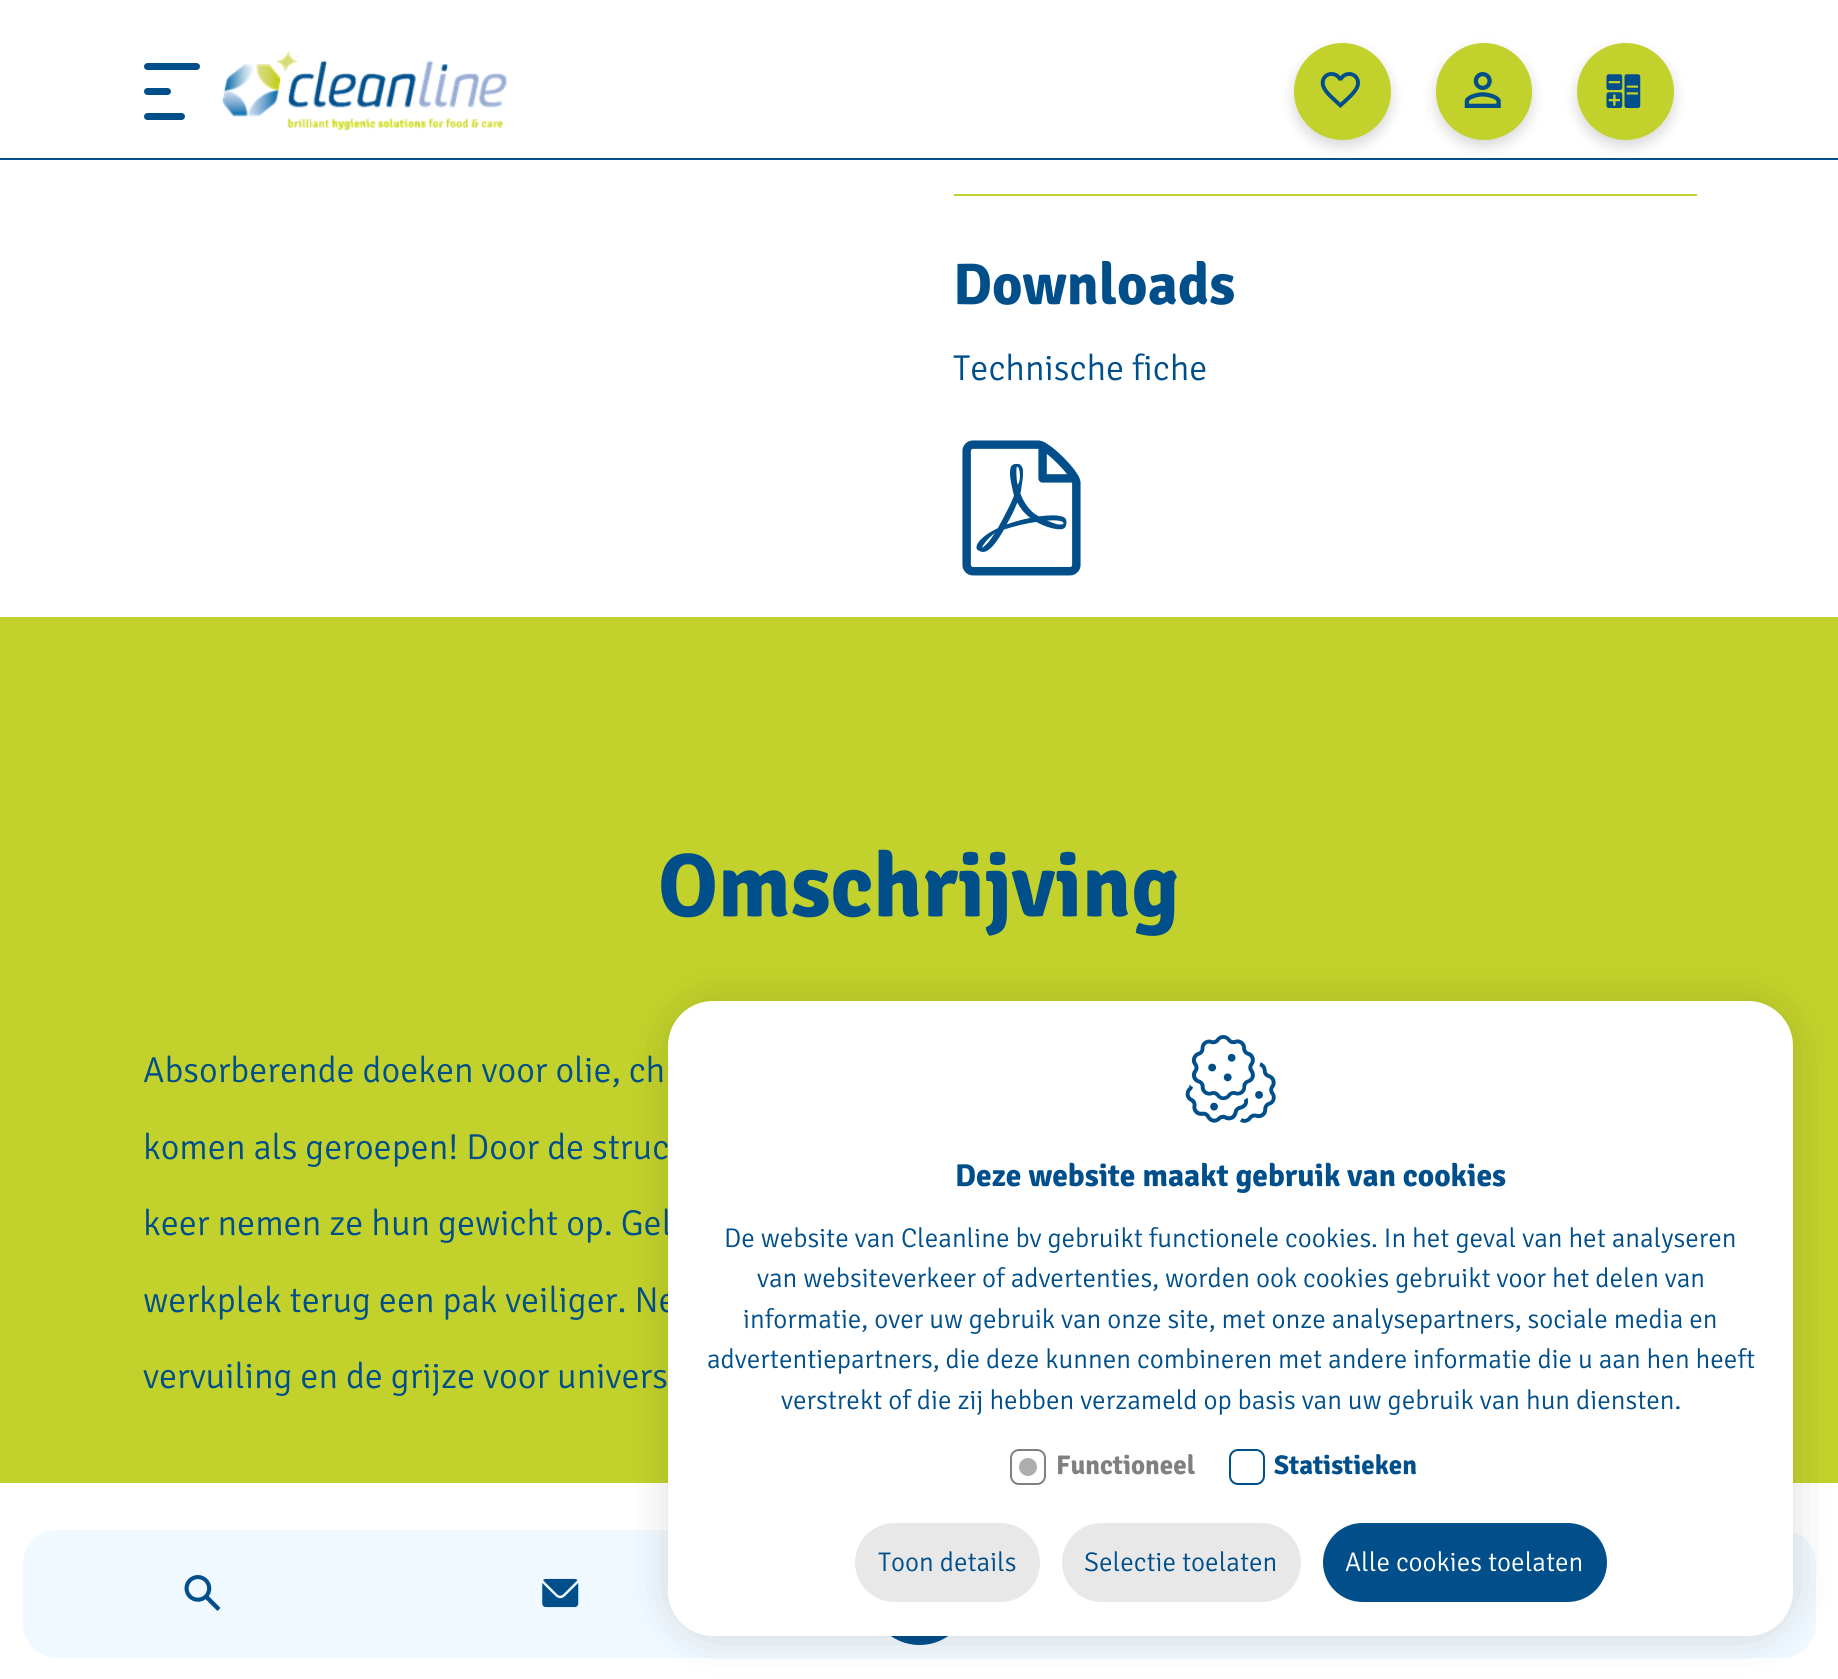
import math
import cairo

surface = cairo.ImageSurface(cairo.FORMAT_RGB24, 1838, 1679)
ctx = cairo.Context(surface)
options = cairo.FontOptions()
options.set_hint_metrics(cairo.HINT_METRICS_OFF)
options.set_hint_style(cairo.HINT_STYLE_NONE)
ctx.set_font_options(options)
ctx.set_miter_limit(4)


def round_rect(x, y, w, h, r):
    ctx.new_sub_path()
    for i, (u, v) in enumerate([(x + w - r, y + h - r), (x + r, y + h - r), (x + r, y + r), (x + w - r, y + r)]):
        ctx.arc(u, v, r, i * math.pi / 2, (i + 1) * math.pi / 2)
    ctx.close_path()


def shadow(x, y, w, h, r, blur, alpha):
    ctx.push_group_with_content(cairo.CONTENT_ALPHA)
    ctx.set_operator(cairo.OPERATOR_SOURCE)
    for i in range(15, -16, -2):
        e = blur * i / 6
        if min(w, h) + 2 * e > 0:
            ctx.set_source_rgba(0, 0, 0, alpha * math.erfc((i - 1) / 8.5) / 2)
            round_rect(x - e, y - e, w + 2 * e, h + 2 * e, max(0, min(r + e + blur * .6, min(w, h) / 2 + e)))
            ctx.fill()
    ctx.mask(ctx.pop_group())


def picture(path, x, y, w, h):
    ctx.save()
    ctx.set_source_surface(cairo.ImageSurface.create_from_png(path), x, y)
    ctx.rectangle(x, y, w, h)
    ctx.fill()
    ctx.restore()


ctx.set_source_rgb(1, 1, 1)
ctx.paint()
ctx.set_source_rgb(0, 0.31, 0.545)
ctx.rectangle(0, 158, 1838, 2)
ctx.fill()
round_rect(144, 63, 56, 7, 3.5)
ctx.fill()
round_rect(144, 88, 27, 7, 3.5)
ctx.fill()
round_rect(144, 113, 41, 7, 3.5)
ctx.fill()
picture("img1.png", 222, 50, 285, 82)
ctx.set_source_rgb(0, 0, 0)
shadow(1294, 50, 97, 96, 48, 7, 0.16)
ctx.set_source_rgb(0.761, 0.82, 0.169)
ctx.arc(1342.5, 91.5, 48.5, 0, 2 * math.pi)
ctx.fill()
picture("img2.png", 1320, 72, 40, 36)
ctx.set_source_rgb(0, 0, 0)
shadow(1436, 50, 96, 96, 48, 7, 0.16)
ctx.set_source_rgb(0.761, 0.82, 0.169)
round_rect(1436, 43, 96, 97, 48)
ctx.fill()
picture("img3.png", 1464, 72, 37, 36)
ctx.set_source_rgb(0, 0, 0)
shadow(1577, 50, 97, 96, 48, 7, 0.16)
ctx.set_source_rgb(0.761, 0.82, 0.169)
ctx.arc(1625.5, 91.5, 48.5, 0, 2 * math.pi)
ctx.fill()
picture("img4.png", 1606, 74, 35, 34)
ctx.rectangle(954, 194, 743, 2)
ctx.fill()
ctx.select_font_face("Signika", cairo.FONT_SLANT_NORMAL, cairo.FONT_WEIGHT_BOLD)
ctx.set_font_size(58.5)
ctx.set_source_rgb(0, 0.31, 0.545)
ctx.move_to(953, 304)
ctx.show_text("Downloads")
ctx.select_font_face("Signika Light")
ctx.set_font_size(36)
ctx.move_to(953, 380)
ctx.show_text("Technische fiche")
picture("img5.png", 962, 440, 119, 136)
ctx.set_source_rgb(0.761, 0.82, 0.169)
ctx.rectangle(0, 617, 1838, 866)
ctx.fill()
ctx.select_font_face("Signika", cairo.FONT_SLANT_NORMAL, cairo.FONT_WEIGHT_BOLD)
ctx.set_font_size(90)
ctx.set_source_rgb(0, 0.31, 0.545)
ctx.move_to(658, 916)
ctx.show_text("Omschrijving")
ctx.select_font_face("Signika Light")
ctx.set_font_size(36)
ctx.move_to(143, 1082)
ctx.show_text("Absorberende doeken voor olie, ch")
ctx.move_to(143, 1159)
ctx.show_text("komen als geroepen! Door de struc")
ctx.move_to(143, 1235)
ctx.show_text("keer nemen ze hun gewicht op. Gel")
ctx.move_to(143, 1312)
ctx.show_text("werkplek terug een pak veiliger. Ne")
ctx.move_to(143, 1388)
ctx.show_text("vervuiling en de grijze voor univers")
ctx.set_source_rgb(0.941, 0.976, 1)
ctx.rectangle(380, 1530, 360, 128)
ctx.fill()
ctx.rectangle(740, 1636, 718, 22)
ctx.fill()
ctx.set_source_rgb(0, 0.31, 0.545)
ctx.arc(919.5, 1594.5, 50.5, 0, 2 * math.pi)
ctx.fill()
ctx.set_source_rgb(0.941, 0.976, 1)
ctx.new_path()
ctx.move_to(1458, 1530)
ctx.line_to(1782, 1530)
ctx.curve_to(1801, 1530, 1816, 1545, 1816, 1564)
ctx.line_to(1816, 1624)
ctx.curve_to(1816, 1643, 1801, 1658, 1782, 1658)
ctx.line_to(1458, 1658)
ctx.close_path()
ctx.fill()
ctx.set_source_rgb(0, 0, 0)
shadow(671, 1004, 1120, 630, 43, 22.5, 0.15)
ctx.set_source_rgb(1, 1, 1)
round_rect(668, 1001, 1125, 635, 45)
ctx.fill()
picture("img6.png", 1185, 1034, 91, 89)
ctx.select_font_face("Signika", cairo.FONT_SLANT_NORMAL, cairo.FONT_WEIGHT_BOLD)
ctx.set_font_size(31.5)
ctx.set_source_rgb(0, 0.31, 0.545)
ctx.move_to(955, 1186)
ctx.show_text("Deze website maakt gebruik van cookies")
ctx.select_font_face("Signika Light")
ctx.set_font_size(27)
ctx.move_to(724, 1247)
ctx.show_text("De website van Cleanline bv gebruikt functionele cookies. In het geval van het analyseren")
ctx.move_to(757, 1287)
ctx.show_text("van websiteverkeer of advertenties, worden ook cookies gebruikt voor het delen van")
ctx.move_to(743, 1328)
ctx.show_text("informatie, over uw gebruik van onze site, met onze analysepartners, sociale media en")
ctx.move_to(707, 1368)
ctx.show_text("advertentiepartners, die deze kunnen combineren met andere informatie die u aan hen heeft")
ctx.move_to(781, 1409)
ctx.show_text("verstrekt of die zij hebben verzameld op basis van uw gebruik van hun diensten.")
round_rect(1011, 1450, 34, 34, 8)
ctx.set_source_rgb(0.502, 0.502, 0.502)
ctx.stroke()
ctx.select_font_face("Signika", cairo.FONT_SLANT_NORMAL, cairo.FONT_WEIGHT_BOLD)
ctx.move_to(1056, 1474)
ctx.show_text("Functioneel")
ctx.set_source_rgb(0.678, 0.678, 0.678)
ctx.new_path()
ctx.arc(1028, 1467, 9, 0, 2 * math.pi)
ctx.fill()
round_rect(1230, 1450, 34, 34, 8)
ctx.set_source_rgb(0, 0.31, 0.545)
ctx.stroke()
ctx.move_to(1274, 1474)
ctx.show_text("Statistieken")
ctx.set_source_rgb(0.91, 0.91, 0.91)
round_rect(855, 1523, 185, 79, 39.5)
ctx.fill()
ctx.select_font_face("Signika Light")
ctx.set_source_rgb(0, 0.31, 0.545)
ctx.move_to(878, 1571)
ctx.show_text("Toon details")
ctx.set_source_rgb(0.91, 0.91, 0.91)
round_rect(1062, 1523, 239, 79, 39.5)
ctx.fill()
ctx.set_source_rgb(0, 0.31, 0.545)
ctx.move_to(1084, 1571)
ctx.show_text("Selectie toelaten")
round_rect(1323, 1523, 284, 79, 39.5)
ctx.fill()
ctx.set_source_rgb(1, 1, 1)
ctx.move_to(1345, 1571)
ctx.show_text("Alle cookies toelaten")
ctx.set_source_rgb(0.941, 0.976, 1)
ctx.new_path()
ctx.move_to(57, 1530)
ctx.line_to(380, 1530)
ctx.line_to(380, 1658)
ctx.line_to(57, 1658)
ctx.curve_to(38, 1658, 23, 1643, 23, 1624)
ctx.line_to(23, 1564)
ctx.curve_to(23, 1545, 38, 1530, 57, 1530)
ctx.close_path()
ctx.fill()
picture("img7.png", 184, 1575, 37, 36)
picture("img8.png", 542, 1578, 37, 30)
surface.write_to_png("page.png")
